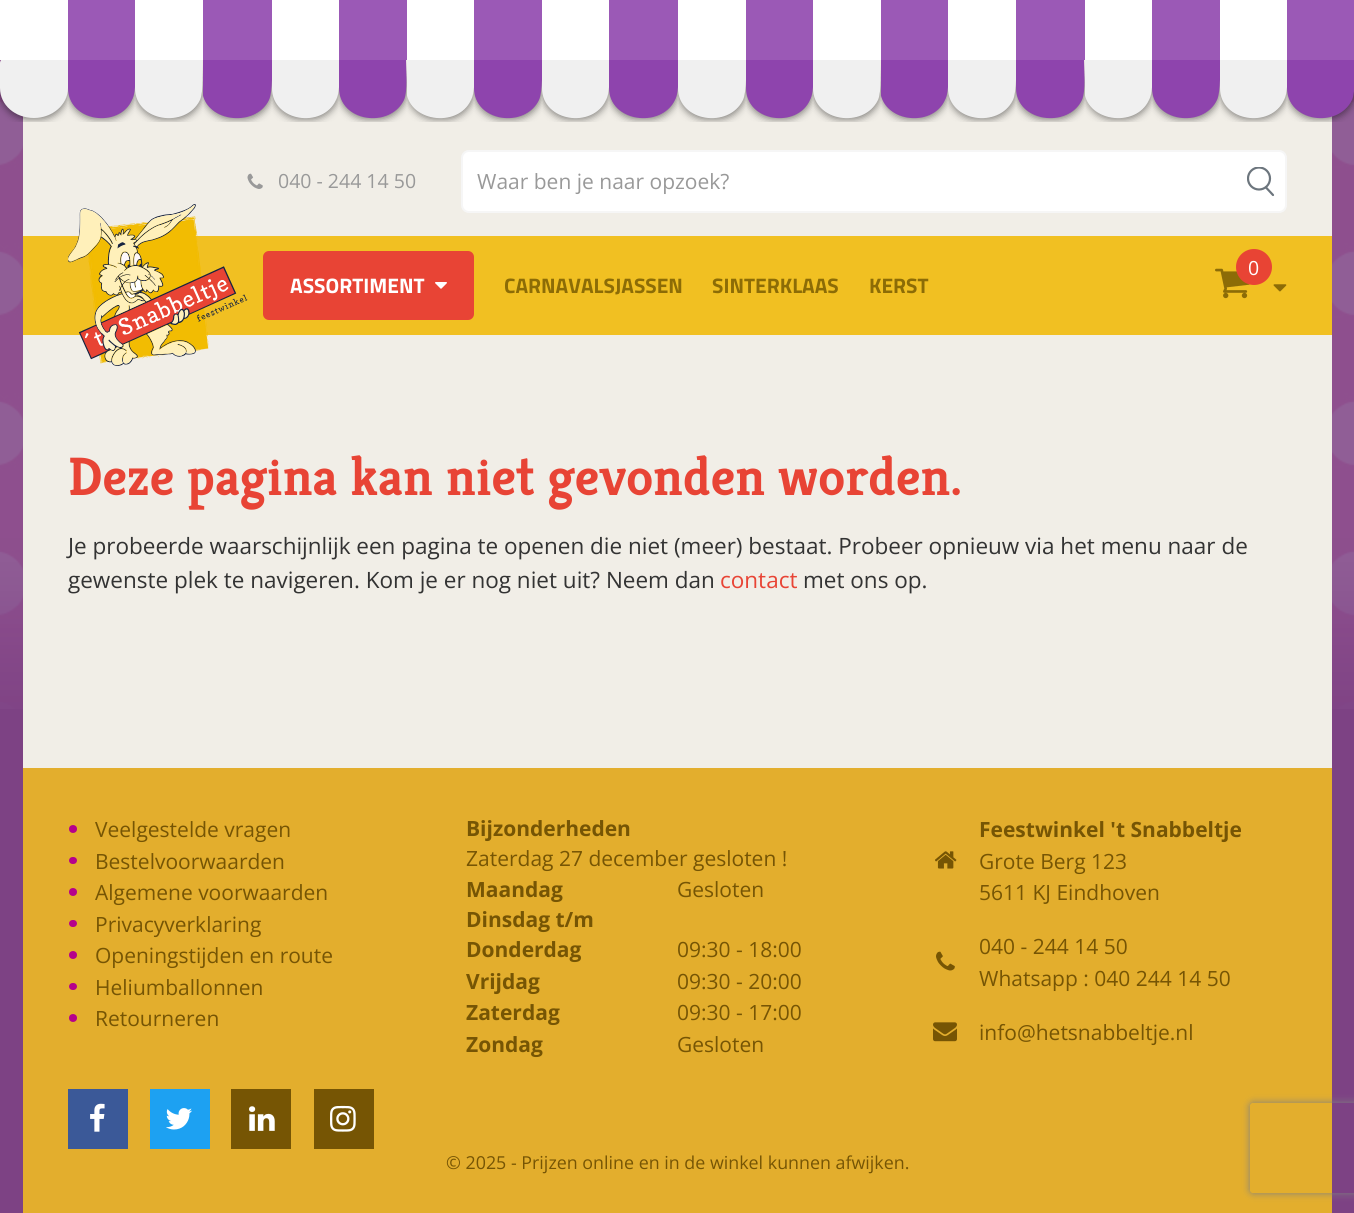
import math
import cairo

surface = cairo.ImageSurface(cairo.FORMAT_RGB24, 1354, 1213)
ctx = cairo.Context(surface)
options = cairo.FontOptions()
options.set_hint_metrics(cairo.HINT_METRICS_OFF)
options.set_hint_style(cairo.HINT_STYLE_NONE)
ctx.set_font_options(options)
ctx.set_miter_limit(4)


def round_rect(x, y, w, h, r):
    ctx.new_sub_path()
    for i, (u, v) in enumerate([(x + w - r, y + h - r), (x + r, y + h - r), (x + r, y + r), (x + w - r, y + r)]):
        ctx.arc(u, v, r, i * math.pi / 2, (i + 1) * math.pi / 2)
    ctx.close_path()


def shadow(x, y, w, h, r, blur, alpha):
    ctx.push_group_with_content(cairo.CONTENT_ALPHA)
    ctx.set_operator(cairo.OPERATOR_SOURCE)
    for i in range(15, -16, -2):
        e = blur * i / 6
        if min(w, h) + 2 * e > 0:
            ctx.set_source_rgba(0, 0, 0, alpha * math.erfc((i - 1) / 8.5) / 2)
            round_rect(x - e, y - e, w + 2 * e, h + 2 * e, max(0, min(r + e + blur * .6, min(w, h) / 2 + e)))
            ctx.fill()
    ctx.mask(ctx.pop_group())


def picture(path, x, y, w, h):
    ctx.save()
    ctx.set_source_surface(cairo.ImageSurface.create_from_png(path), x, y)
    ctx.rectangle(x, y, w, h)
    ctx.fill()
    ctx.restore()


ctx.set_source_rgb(0.49, 0.259, 0.518)
ctx.paint()
picture("img1.png", 0, 60, 1354, 649)
ctx.set_source_rgb(0.945, 0.933, 0.906)
ctx.rectangle(23, 60, 1309, 708)
ctx.fill()
ctx.save()
ctx.rectangle(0, 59, 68, 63)
ctx.clip()
ctx.set_source_rgb(0, 0, 0)
shadow(0, 59, 68, 60, 30, 4, 0.5)
ctx.restore()
ctx.set_source_rgb(0.941, 0.941, 0.941)
ctx.new_path()
ctx.move_to(4, 58)
ctx.line_to(68, 58)
ctx.line_to(68, 88)
ctx.curve_to(68, 105, 52, 118, 34, 118)
ctx.curve_to(15, 118, 0, 105, 0, 88)
ctx.line_to(0, 63)
ctx.curve_to(0, 61, 2, 58, 4, 58)
ctx.close_path()
ctx.fill()
ctx.save()
ctx.rectangle(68, 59, 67, 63)
ctx.clip()
ctx.set_source_rgb(0, 0, 0)
shadow(68, 59, 67, 60, 30, 4, 0.5)
ctx.restore()
ctx.set_source_rgb(1, 1, 1)
ctx.rectangle(0, 0, 68, 60)
ctx.fill()
ctx.set_source_rgb(0.557, 0.267, 0.678)
ctx.new_path()
ctx.move_to(68, 58)
ctx.line_to(135, 58)
ctx.curve_to(135, 69, 137, 91, 132, 100)
ctx.curve_to(119, 129, 68, 122, 68, 88)
ctx.close_path()
ctx.fill()
ctx.save()
ctx.rectangle(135, 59, 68, 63)
ctx.clip()
ctx.set_source_rgb(0, 0, 0)
shadow(135, 59, 68, 60, 30, 4, 0.5)
ctx.restore()
ctx.set_source_rgb(0.608, 0.349, 0.714)
ctx.rectangle(68, 0, 67, 60)
ctx.fill()
ctx.set_source_rgb(0.941, 0.941, 0.941)
ctx.new_path()
ctx.move_to(135, 58)
ctx.line_to(202, 58)
ctx.curve_to(202, 69, 204, 91, 200, 100)
ctx.curve_to(186, 129, 135, 122, 135, 88)
ctx.close_path()
ctx.fill()
ctx.save()
ctx.rectangle(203, 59, 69, 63)
ctx.clip()
ctx.set_source_rgb(0, 0, 0)
shadow(203, 59, 69, 60, 30, 4, 0.5)
ctx.restore()
ctx.set_source_rgb(1, 1, 1)
ctx.rectangle(135, 0, 68, 60)
ctx.fill()
ctx.save()
ctx.rectangle(203, 59, 69, 63)
ctx.clip()
ctx.set_source_rgb(0.557, 0.267, 0.678)
ctx.new_path()
ctx.move_to(202, 58)
ctx.line_to(272, 58)
ctx.curve_to(272, 69, 273, 91, 269, 100)
ctx.curve_to(255, 129, 202, 122, 202, 88)
ctx.close_path()
ctx.fill()
ctx.restore()
ctx.save()
ctx.rectangle(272, 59, 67, 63)
ctx.clip()
ctx.set_source_rgb(0, 0, 0)
shadow(272, 59, 67, 60, 30, 4, 0.5)
ctx.restore()
ctx.set_source_rgb(0.608, 0.349, 0.714)
ctx.rectangle(203, 0, 69, 60)
ctx.fill()
ctx.set_source_rgb(0.941, 0.941, 0.941)
ctx.new_path()
ctx.move_to(272, 58)
ctx.line_to(339, 58)
ctx.curve_to(339, 69, 341, 91, 336, 100)
ctx.curve_to(323, 129, 272, 122, 272, 88)
ctx.close_path()
ctx.fill()
ctx.save()
ctx.rectangle(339, 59, 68, 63)
ctx.clip()
ctx.set_source_rgb(0, 0, 0)
shadow(339, 59, 68, 60, 30, 4, 0.5)
ctx.restore()
ctx.set_source_rgb(1, 1, 1)
ctx.rectangle(272, 0, 67, 60)
ctx.fill()
ctx.set_source_rgb(0.557, 0.267, 0.678)
ctx.new_path()
ctx.move_to(339, 58)
ctx.line_to(406, 58)
ctx.curve_to(406, 69, 408, 91, 404, 100)
ctx.curve_to(390, 129, 339, 122, 339, 88)
ctx.close_path()
ctx.fill()
ctx.save()
ctx.rectangle(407, 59, 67, 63)
ctx.clip()
ctx.set_source_rgb(0, 0, 0)
shadow(407, 59, 67, 60, 30, 4, 0.5)
ctx.restore()
ctx.set_source_rgb(0.608, 0.349, 0.714)
ctx.rectangle(339, 0, 68, 60)
ctx.fill()
ctx.save()
ctx.rectangle(407, 59, 67, 63)
ctx.clip()
ctx.set_source_rgb(0.941, 0.941, 0.941)
ctx.new_path()
ctx.move_to(406, 58)
ctx.line_to(474, 58)
ctx.curve_to(474, 69, 476, 91, 471, 100)
ctx.curve_to(458, 129, 406, 122, 406, 88)
ctx.close_path()
ctx.fill()
ctx.restore()
ctx.save()
ctx.rectangle(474, 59, 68, 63)
ctx.clip()
ctx.set_source_rgb(0, 0, 0)
shadow(474, 59, 68, 60, 30, 4, 0.5)
ctx.restore()
ctx.set_source_rgb(1, 1, 1)
ctx.rectangle(407, 0, 67, 60)
ctx.fill()
ctx.set_source_rgb(0.557, 0.267, 0.678)
ctx.new_path()
ctx.move_to(474, 58)
ctx.line_to(542, 58)
ctx.curve_to(542, 69, 543, 91, 539, 100)
ctx.curve_to(525, 129, 474, 122, 474, 88)
ctx.close_path()
ctx.fill()
ctx.save()
ctx.rectangle(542, 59, 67, 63)
ctx.clip()
ctx.set_source_rgb(0, 0, 0)
shadow(542, 59, 67, 60, 30, 4, 0.5)
ctx.restore()
ctx.set_source_rgb(0.608, 0.349, 0.714)
ctx.rectangle(474, 0, 68, 60)
ctx.fill()
ctx.set_source_rgb(0.941, 0.941, 0.941)
ctx.new_path()
ctx.move_to(542, 58)
ctx.line_to(609, 58)
ctx.curve_to(609, 69, 611, 91, 606, 100)
ctx.curve_to(593, 129, 542, 122, 542, 88)
ctx.close_path()
ctx.fill()
ctx.save()
ctx.rectangle(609, 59, 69, 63)
ctx.clip()
ctx.set_source_rgb(0, 0, 0)
shadow(609, 59, 69, 60, 30, 4, 0.5)
ctx.restore()
ctx.set_source_rgb(1, 1, 1)
ctx.rectangle(542, 0, 67, 60)
ctx.fill()
ctx.set_source_rgb(0.557, 0.267, 0.678)
ctx.new_path()
ctx.move_to(609, 58)
ctx.line_to(678, 58)
ctx.curve_to(678, 69, 680, 91, 675, 100)
ctx.curve_to(661, 129, 609, 122, 609, 88)
ctx.close_path()
ctx.fill()
ctx.save()
ctx.rectangle(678, 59, 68, 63)
ctx.clip()
ctx.set_source_rgb(0, 0, 0)
shadow(678, 59, 68, 60, 30, 4, 0.5)
ctx.restore()
ctx.set_source_rgb(0.608, 0.349, 0.714)
ctx.rectangle(609, 0, 69, 60)
ctx.fill()
ctx.set_source_rgb(0.941, 0.941, 0.941)
ctx.new_path()
ctx.move_to(678, 58)
ctx.line_to(746, 58)
ctx.curve_to(746, 69, 747, 91, 743, 100)
ctx.curve_to(729, 129, 678, 122, 678, 88)
ctx.close_path()
ctx.fill()
ctx.save()
ctx.rectangle(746, 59, 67, 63)
ctx.clip()
ctx.set_source_rgb(0, 0, 0)
shadow(746, 59, 67, 60, 30, 4, 0.5)
ctx.restore()
ctx.set_source_rgb(1, 1, 1)
ctx.rectangle(678, 0, 68, 60)
ctx.fill()
ctx.set_source_rgb(0.557, 0.267, 0.678)
ctx.new_path()
ctx.move_to(746, 58)
ctx.line_to(813, 58)
ctx.curve_to(813, 69, 815, 91, 810, 100)
ctx.curve_to(797, 129, 746, 122, 746, 88)
ctx.close_path()
ctx.fill()
ctx.save()
ctx.rectangle(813, 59, 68, 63)
ctx.clip()
ctx.set_source_rgb(0, 0, 0)
shadow(813, 59, 68, 60, 30, 4, 0.5)
ctx.restore()
ctx.set_source_rgb(0.608, 0.349, 0.714)
ctx.rectangle(746, 0, 67, 60)
ctx.fill()
ctx.set_source_rgb(0.941, 0.941, 0.941)
ctx.new_path()
ctx.move_to(813, 58)
ctx.line_to(880, 58)
ctx.curve_to(880, 69, 882, 91, 878, 100)
ctx.curve_to(864, 129, 813, 122, 813, 88)
ctx.close_path()
ctx.fill()
ctx.save()
ctx.rectangle(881, 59, 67, 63)
ctx.clip()
ctx.set_source_rgb(0, 0, 0)
shadow(881, 59, 67, 60, 30, 4, 0.5)
ctx.restore()
ctx.set_source_rgb(1, 1, 1)
ctx.rectangle(813, 0, 68, 60)
ctx.fill()
ctx.save()
ctx.rectangle(881, 59, 67, 63)
ctx.clip()
ctx.set_source_rgb(0.557, 0.267, 0.678)
ctx.new_path()
ctx.move_to(880, 58)
ctx.line_to(948, 58)
ctx.curve_to(948, 69, 950, 91, 945, 100)
ctx.curve_to(932, 129, 880, 122, 880, 88)
ctx.close_path()
ctx.fill()
ctx.restore()
ctx.save()
ctx.rectangle(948, 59, 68, 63)
ctx.clip()
ctx.set_source_rgb(0, 0, 0)
shadow(948, 59, 68, 60, 30, 4, 0.5)
ctx.restore()
ctx.set_source_rgb(0.608, 0.349, 0.714)
ctx.rectangle(881, 0, 67, 60)
ctx.fill()
ctx.set_source_rgb(0.941, 0.941, 0.941)
ctx.new_path()
ctx.move_to(948, 58)
ctx.line_to(1016, 58)
ctx.curve_to(1016, 69, 1017, 91, 1013, 100)
ctx.curve_to(999, 129, 948, 122, 948, 88)
ctx.close_path()
ctx.fill()
ctx.save()
ctx.rectangle(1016, 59, 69, 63)
ctx.clip()
ctx.set_source_rgb(0, 0, 0)
shadow(1016, 59, 69, 60, 30, 4, 0.5)
ctx.restore()
ctx.set_source_rgb(1, 1, 1)
ctx.rectangle(948, 0, 68, 60)
ctx.fill()
ctx.set_source_rgb(0.557, 0.267, 0.678)
ctx.new_path()
ctx.move_to(1016, 58)
ctx.line_to(1084, 58)
ctx.curve_to(1084, 69, 1086, 91, 1082, 100)
ctx.curve_to(1068, 129, 1016, 122, 1016, 88)
ctx.close_path()
ctx.fill()
ctx.save()
ctx.rectangle(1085, 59, 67, 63)
ctx.clip()
ctx.set_source_rgb(0, 0, 0)
shadow(1085, 59, 67, 60, 30, 4, 0.5)
ctx.restore()
ctx.set_source_rgb(0.608, 0.349, 0.714)
ctx.rectangle(1016, 0, 69, 60)
ctx.fill()
ctx.save()
ctx.rectangle(1085, 59, 67, 63)
ctx.clip()
ctx.set_source_rgb(0.941, 0.941, 0.941)
ctx.new_path()
ctx.move_to(1084, 58)
ctx.line_to(1152, 58)
ctx.curve_to(1152, 69, 1154, 91, 1149, 100)
ctx.curve_to(1136, 129, 1084, 122, 1084, 88)
ctx.close_path()
ctx.fill()
ctx.restore()
ctx.save()
ctx.rectangle(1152, 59, 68, 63)
ctx.clip()
ctx.set_source_rgb(0, 0, 0)
shadow(1152, 59, 68, 60, 30, 4, 0.5)
ctx.restore()
ctx.set_source_rgb(1, 1, 1)
ctx.rectangle(1085, 0, 67, 60)
ctx.fill()
ctx.set_source_rgb(0.557, 0.267, 0.678)
ctx.new_path()
ctx.move_to(1152, 58)
ctx.line_to(1220, 58)
ctx.curve_to(1220, 69, 1221, 91, 1217, 100)
ctx.curve_to(1203, 129, 1152, 122, 1152, 88)
ctx.close_path()
ctx.fill()
ctx.save()
ctx.rectangle(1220, 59, 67, 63)
ctx.clip()
ctx.set_source_rgb(0, 0, 0)
shadow(1220, 59, 67, 60, 30, 4, 0.5)
ctx.restore()
ctx.set_source_rgb(0.608, 0.349, 0.714)
ctx.rectangle(1152, 0, 68, 60)
ctx.fill()
ctx.set_source_rgb(0.941, 0.941, 0.941)
ctx.new_path()
ctx.move_to(1220, 58)
ctx.line_to(1287, 58)
ctx.curve_to(1287, 69, 1289, 91, 1284, 100)
ctx.curve_to(1271, 129, 1220, 122, 1220, 88)
ctx.close_path()
ctx.fill()
ctx.save()
ctx.rectangle(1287, 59, 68, 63)
ctx.clip()
ctx.set_source_rgb(0, 0, 0)
shadow(1287, 59, 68, 60, 30, 4, 0.5)
ctx.restore()
ctx.set_source_rgb(1, 1, 1)
ctx.rectangle(1220, 0, 67, 60)
ctx.fill()
ctx.set_source_rgb(0.557, 0.267, 0.678)
ctx.new_path()
ctx.move_to(1287, 58)
ctx.line_to(1354, 58)
ctx.curve_to(1354, 69, 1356, 91, 1352, 100)
ctx.curve_to(1338, 129, 1287, 122, 1287, 88)
ctx.close_path()
ctx.fill()
ctx.set_source_rgb(0.608, 0.349, 0.714)
ctx.rectangle(1287, 0, 67, 60)
ctx.fill()
picture("img2.png", 247, 173, 16, 16)
ctx.select_font_face("Open Sans")
ctx.set_font_size(19.5)
ctx.set_source_rgb(0.6, 0.6, 0.6)
ctx.move_to(278, 188)
ctx.show_text("040 - 244 14 50")
ctx.set_source_rgb(1, 1, 1)
round_rect(462, 151, 824, 61, 7)
ctx.fill_preserve()
ctx.set_source_rgb(0.961, 0.961, 0.961)
ctx.stroke()
ctx.set_font_size(21)
ctx.set_source_rgb(0.6, 0.6, 0.6)
ctx.move_to(477, 189)
ctx.show_text("Waar ben je naar opzoek?")
ctx.save()
ctx.rectangle(1247, 167, 28, 30)
ctx.clip()
ctx.arc(1259, 178.5, 11, 0, 2 * math.pi)
ctx.set_source_rgb(0.424, 0.459, 0.49)
ctx.set_line_width(2.2)
ctx.stroke()
ctx.restore()
ctx.new_path()
ctx.move_to(1266, 187.5)
ctx.line_to(1273, 195)
ctx.set_source_rgb(0.424, 0.459, 0.49)
ctx.set_line_width(2.2)
ctx.set_line_cap(cairo.LINE_CAP_ROUND)
ctx.stroke()
ctx.set_source_rgb(0.945, 0.753, 0.133)
ctx.rectangle(23, 236, 1309, 99)
ctx.fill()
picture("img3.png", 68, 204, 180, 162)
picture("img4.png", 1215, 268, 35, 31)
ctx.set_source_rgb(0.91, 0.267, 0.204)
ctx.arc(1254, 267, 18, 0, 2 * math.pi)
ctx.fill()
ctx.set_font_size(19.5)
ctx.set_source_rgb(1, 1, 1)
ctx.move_to(1248, 275)
ctx.show_text("0")
picture("img5.png", 1273, 284, 14, 8)
ctx.set_source_rgb(0.91, 0.267, 0.208)
round_rect(263, 251, 211, 69, 6)
ctx.fill()
ctx.select_font_face("Titillium Web", cairo.FONT_SLANT_NORMAL, cairo.FONT_WEIGHT_BOLD)
ctx.set_font_size(21)
ctx.set_source_rgb(1, 1, 1)
ctx.move_to(290, 293)
ctx.show_text("ASSORTIMENT")
picture("img6.png", 435, 282, 12, 7)
ctx.set_source_rgb(0.549, 0.424, 0.027)
ctx.move_to(504, 293)
ctx.show_text("CARNAVALSJASSEN")
ctx.move_to(712, 293)
ctx.show_text("SINTERKLAAS")
ctx.move_to(869, 293)
ctx.show_text("KERST")
ctx.select_font_face("Kreon", cairo.FONT_SLANT_NORMAL, cairo.FONT_WEIGHT_BOLD)
ctx.set_font_size(54)
ctx.set_source_rgb(0.91, 0.267, 0.208)
ctx.move_to(68, 495)
ctx.show_text("Deze pagina kan niet gevonden worden.")
ctx.select_font_face("Open Sans")
ctx.set_font_size(22.5)
ctx.set_source_rgb(0.2, 0.2, 0.2)
ctx.move_to(68, 554)
ctx.show_text("Je probeerde waarschijnlijk een pagina te openen die niet (meer) bestaat. Probeer opnieuw via het menu naar de")
ctx.move_to(68, 588)
ctx.show_text("gewenste plek te navigeren. Kom je er nog niet uit? Neem dan")
ctx.set_source_rgb(0.91, 0.267, 0.208)
ctx.move_to(720, 588)
ctx.show_text("contact")
ctx.set_source_rgb(0.2, 0.2, 0.2)
ctx.move_to(803, 588)
ctx.show_text("met ons op.")
ctx.set_source_rgb(0.89, 0.682, 0.176)
ctx.rectangle(23, 768, 1309, 445)
ctx.fill()
ctx.set_source_rgb(0.714, 0.004, 0.545)
ctx.arc(73, 829, 4, 0, 2 * math.pi)
ctx.fill()
ctx.set_font_size(21)
ctx.set_source_rgb(0.463, 0.333, 0.016)
ctx.move_to(95, 837)
ctx.show_text("Veelgestelde vragen")
ctx.set_source_rgb(0.714, 0.004, 0.545)
round_rect(69, 857, 8, 7, 3.5)
ctx.fill()
ctx.set_source_rgb(0.463, 0.333, 0.016)
ctx.move_to(95, 869)
ctx.show_text("Bestelvoorwaarden")
ctx.set_source_rgb(0.714, 0.004, 0.545)
ctx.new_path()
ctx.arc(73, 892, 4, 0, 2 * math.pi)
ctx.fill()
ctx.set_source_rgb(0.463, 0.333, 0.016)
ctx.move_to(95, 900)
ctx.show_text("Algemene voorwaarden")
ctx.set_source_rgb(0.714, 0.004, 0.545)
round_rect(69, 920, 8, 7, 3.5)
ctx.fill()
ctx.set_source_rgb(0.463, 0.333, 0.016)
ctx.move_to(95, 932)
ctx.show_text("Privacyverklaring")
ctx.set_source_rgb(0.714, 0.004, 0.545)
ctx.new_path()
ctx.arc(73, 955, 4, 0, 2 * math.pi)
ctx.fill()
ctx.set_source_rgb(0.463, 0.333, 0.016)
ctx.move_to(95, 963)
ctx.show_text("Openingstijden en route")
ctx.set_source_rgb(0.714, 0.004, 0.545)
round_rect(69, 983, 8, 7, 3.5)
ctx.fill()
ctx.set_source_rgb(0.463, 0.333, 0.016)
ctx.move_to(95, 995)
ctx.show_text("Heliumballonnen")
ctx.set_source_rgb(0.714, 0.004, 0.545)
ctx.new_path()
ctx.arc(73, 1018, 4, 0, 2 * math.pi)
ctx.fill()
ctx.set_source_rgb(0.463, 0.333, 0.016)
ctx.move_to(95, 1026)
ctx.show_text("Retourneren")
ctx.select_font_face("Open Sans", cairo.FONT_SLANT_NORMAL, cairo.FONT_WEIGHT_BOLD)
ctx.move_to(466, 836)
ctx.show_text("Bijzonderheden")
ctx.select_font_face("Open Sans")
ctx.move_to(466, 866)
ctx.show_text("Zaterdag 27 december gesloten !")
ctx.select_font_face("Open Sans", cairo.FONT_SLANT_NORMAL, cairo.FONT_WEIGHT_BOLD)
ctx.move_to(466, 897)
ctx.show_text("Maandag")
ctx.select_font_face("Open Sans")
ctx.move_to(677, 897)
ctx.show_text("Gesloten")
ctx.select_font_face("Open Sans", cairo.FONT_SLANT_NORMAL, cairo.FONT_WEIGHT_BOLD)
ctx.move_to(466, 927)
ctx.show_text("Dinsdag t/m")
ctx.move_to(466, 957)
ctx.show_text("Donderdag")
ctx.select_font_face("Open Sans")
ctx.move_to(677, 957)
ctx.show_text("09:30 - 18:00")
ctx.select_font_face("Open Sans", cairo.FONT_SLANT_NORMAL, cairo.FONT_WEIGHT_BOLD)
ctx.move_to(466, 989)
ctx.show_text("Vrijdag")
ctx.select_font_face("Open Sans")
ctx.move_to(677, 989)
ctx.show_text("09:30 - 20:00")
ctx.select_font_face("Open Sans", cairo.FONT_SLANT_NORMAL, cairo.FONT_WEIGHT_BOLD)
ctx.move_to(466, 1020)
ctx.show_text("Zaterdag")
ctx.select_font_face("Open Sans")
ctx.move_to(677, 1020)
ctx.show_text("09:30 - 17:00")
ctx.select_font_face("Open Sans", cairo.FONT_SLANT_NORMAL, cairo.FONT_WEIGHT_BOLD)
ctx.move_to(466, 1052)
ctx.show_text("Zondag")
ctx.select_font_face("Open Sans")
ctx.move_to(677, 1052)
ctx.show_text("Gesloten")
picture("img7.png", 935, 851, 22, 18)
ctx.select_font_face("Open Sans", cairo.FONT_SLANT_NORMAL, cairo.FONT_WEIGHT_BOLD)
ctx.move_to(979, 837)
ctx.show_text("Feestwinkel 't Snabbeltje")
ctx.select_font_face("Open Sans")
ctx.move_to(979, 869)
ctx.show_text("Grote Berg 123")
ctx.move_to(979, 900)
ctx.show_text("5611 KJ Eindhoven")
picture("img8.png", 936, 951, 19, 20)
ctx.move_to(979, 954)
ctx.show_text("040 - 244 14 50")
ctx.move_to(979, 986)
ctx.show_text("Whatsapp : 040 244 14 50")
picture("img9.png", 933, 1022, 24, 20)
ctx.move_to(979, 1040)
ctx.show_text("info@hetsnabbeltje.nl")
ctx.set_source_rgb(0.231, 0.349, 0.596)
ctx.rectangle(68, 1089, 60, 60)
ctx.fill()
picture("img10.png", 90, 1103, 15, 29)
ctx.set_source_rgb(0.114, 0.631, 0.949)
ctx.rectangle(150, 1089, 60, 60)
ctx.fill()
picture("img11.png", 166, 1108, 26, 22)
ctx.set_source_rgb(0.463, 0.333, 0.016)
ctx.rectangle(231, 1089, 60, 60)
ctx.fill()
picture("img12.png", 249, 1106, 26, 25)
ctx.rectangle(314, 1089, 60, 60)
ctx.fill()
picture("img13.png", 330, 1105, 26, 27)
ctx.set_font_size(17.85)
ctx.move_to(446, 1169)
ctx.show_text("© 2025 - Prijzen online en in de winkel kunnen afwijken.")
ctx.save()
ctx.set_fill_rule(cairo.FILL_RULE_EVEN_ODD)
ctx.new_path()
ctx.move_to(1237, 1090)
ctx.line_to(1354, 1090)
ctx.line_to(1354, 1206)
ctx.line_to(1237, 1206)
ctx.close_path()
ctx.move_to(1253, 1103)
ctx.line_to(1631, 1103)
ctx.curve_to(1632.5, 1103, 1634, 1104.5, 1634, 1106)
ctx.line_to(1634, 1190)
ctx.curve_to(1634, 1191.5, 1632.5, 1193, 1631, 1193)
ctx.line_to(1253, 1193)
ctx.curve_to(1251.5, 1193, 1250, 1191.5, 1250, 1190)
ctx.line_to(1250, 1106)
ctx.curve_to(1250, 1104.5, 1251.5, 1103, 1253, 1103)
ctx.close_path()
ctx.clip()
ctx.set_source_rgb(0.502, 0.502, 0.502)
shadow(1250, 1103, 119, 90, 3, 4, 1)
ctx.restore()
surface.write_to_png("page.png")
